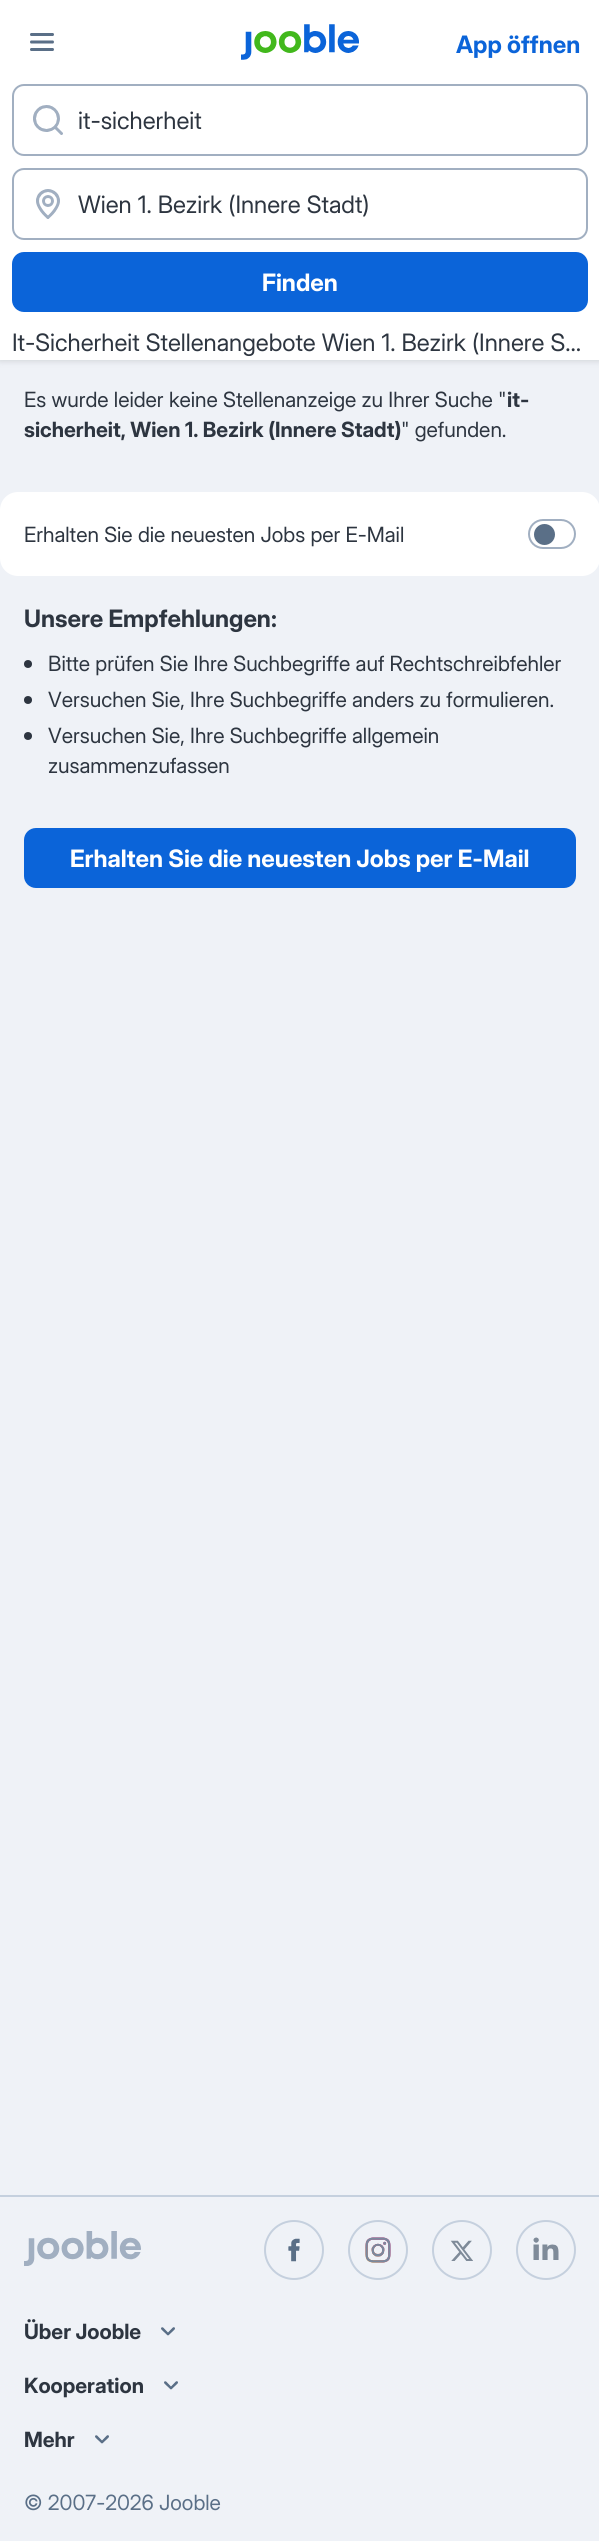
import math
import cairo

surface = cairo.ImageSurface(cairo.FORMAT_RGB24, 599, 2541)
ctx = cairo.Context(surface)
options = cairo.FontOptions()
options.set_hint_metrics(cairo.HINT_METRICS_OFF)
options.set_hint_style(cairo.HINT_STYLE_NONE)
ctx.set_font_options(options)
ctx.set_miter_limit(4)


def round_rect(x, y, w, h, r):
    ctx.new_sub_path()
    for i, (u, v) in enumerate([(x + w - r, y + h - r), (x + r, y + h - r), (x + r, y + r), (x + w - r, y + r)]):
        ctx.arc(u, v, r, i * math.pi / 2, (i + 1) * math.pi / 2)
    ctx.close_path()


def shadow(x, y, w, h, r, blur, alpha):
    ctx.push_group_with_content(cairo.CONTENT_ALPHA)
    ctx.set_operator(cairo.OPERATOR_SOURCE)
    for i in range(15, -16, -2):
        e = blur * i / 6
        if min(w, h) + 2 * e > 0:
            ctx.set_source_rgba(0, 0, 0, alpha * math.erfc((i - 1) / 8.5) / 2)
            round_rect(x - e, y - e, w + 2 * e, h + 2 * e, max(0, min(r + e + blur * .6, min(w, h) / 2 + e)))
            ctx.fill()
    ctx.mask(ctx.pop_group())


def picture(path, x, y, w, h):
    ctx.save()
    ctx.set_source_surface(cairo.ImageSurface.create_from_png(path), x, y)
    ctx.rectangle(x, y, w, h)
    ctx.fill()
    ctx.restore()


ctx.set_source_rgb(0.937, 0.949, 0.965)
ctx.paint()
ctx.set_source_rgb(0.09, 0.118, 0.149)
shadow(0, 0, 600, 360, 0, 4.5, 0.12)
shadow(0, 0, 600, 360, 0, 3, 0.08)
ctx.set_source_rgb(1, 1, 1)
ctx.rectangle(0, 0, 599, 360)
ctx.fill()
picture("img1.png", 30, 33, 24, 18)
picture("img2.png", 241, 24, 118, 36)
ctx.select_font_face("Inter Display", cairo.FONT_SLANT_NORMAL, cairo.FONT_WEIGHT_BOLD)
ctx.set_font_size(24)
ctx.set_source_rgb(0.043, 0.392, 0.851)
ctx.move_to(456, 53)
ctx.show_text("App öffnen")
round_rect(13, 85, 574, 70, 11)
ctx.set_source_rgb(0.631, 0.686, 0.757)
ctx.stroke()
picture("img3.png", 33, 105, 30, 30)
ctx.select_font_face("Inter Display")
ctx.set_source_rgb(0.176, 0.208, 0.251)
ctx.move_to(78, 129)
ctx.show_text("it-sicherheit")
round_rect(13, 169, 574, 70, 11)
ctx.set_source_rgb(0.631, 0.686, 0.757)
ctx.stroke()
picture("img4.png", 36, 189, 24, 30)
ctx.set_source_rgb(0.176, 0.208, 0.251)
ctx.move_to(78, 213)
ctx.show_text("Wien 1. Bezirk (Innere Stadt)")
ctx.set_source_rgb(0.043, 0.392, 0.851)
round_rect(12, 252, 576, 60, 12)
ctx.fill()
ctx.select_font_face("Inter Display", cairo.FONT_SLANT_NORMAL, cairo.FONT_WEIGHT_BOLD)
ctx.set_source_rgb(1, 1, 1)
ctx.move_to(262, 291)
ctx.show_text("Finden")
ctx.select_font_face("Inter Display")
ctx.set_source_rgb(0.176, 0.208, 0.251)
ctx.move_to(12, 351)
ctx.show_text("It-Sicherheit Stellenangebote Wien 1. Bezirk (Innere S…")
ctx.set_font_size(21)
ctx.move_to(24, 407)
ctx.show_text("Es wurde leider keine Stellenanzeige zu Ihrer Suche \"")
ctx.select_font_face("Inter Display", cairo.FONT_SLANT_NORMAL, cairo.FONT_WEIGHT_BOLD)
ctx.move_to(507, 407)
ctx.show_text("it-")
ctx.move_to(24, 437)
ctx.show_text("sicherheit, Wien 1. Bezirk (Innere Stadt)")
ctx.select_font_face("Inter Display")
ctx.move_to(401, 437)
ctx.show_text("\" gefunden.")
ctx.set_source_rgb(1, 1, 1)
round_rect(0, 492, 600, 84, 18)
ctx.fill()
ctx.set_source_rgb(0.176, 0.208, 0.251)
ctx.move_to(24, 542)
ctx.show_text("Erhalten Sie die neuesten Jobs per E-Mail")
round_rect(529, 520, 46, 28, 14)
ctx.set_source_rgb(0.631, 0.686, 0.757)
ctx.stroke()
ctx.set_source_rgb(0.353, 0.435, 0.529)
ctx.arc(544.5, 534.5, 10.5, 0, 2 * math.pi)
ctx.fill()
ctx.select_font_face("Inter Display", cairo.FONT_SLANT_NORMAL, cairo.FONT_WEIGHT_BOLD)
ctx.set_font_size(24)
ctx.set_source_rgb(0.176, 0.208, 0.251)
ctx.move_to(24, 627)
ctx.show_text("Unsere Empfehlungen:")
ctx.new_path()
ctx.arc(28, 664, 4, 0, 2 * math.pi)
ctx.fill()
ctx.select_font_face("Inter Display")
ctx.set_font_size(21)
ctx.move_to(48, 671)
ctx.show_text("Bitte prüfen Sie Ihre Suchbegriffe auf Rechtschreibfehler")
ctx.new_path()
ctx.arc(28, 700, 4, 0, 2 * math.pi)
ctx.fill()
ctx.move_to(48, 707)
ctx.show_text("Versuchen Sie, Ihre Suchbegriffe anders zu formulieren.")
ctx.new_path()
ctx.arc(28, 736, 4, 0, 2 * math.pi)
ctx.fill()
ctx.move_to(48, 743)
ctx.show_text("Versuchen Sie, Ihre Suchbegriffe allgemein")
ctx.move_to(48, 773)
ctx.show_text("zusammenzufassen")
ctx.set_source_rgb(0.043, 0.392, 0.851)
round_rect(24, 828, 552, 60, 12)
ctx.fill()
ctx.select_font_face("Inter Display", cairo.FONT_SLANT_NORMAL, cairo.FONT_WEIGHT_BOLD)
ctx.set_font_size(24)
ctx.set_source_rgb(1, 1, 1)
ctx.move_to(70, 867)
ctx.show_text("Erhalten Sie die neuesten Jobs per E-Mail")
ctx.set_source_rgb(0.773, 0.816, 0.871)
ctx.rectangle(0, 2195, 599, 2)
ctx.fill()
picture("img5.png", 24, 2231, 117, 35)
ctx.arc(294, 2250, 29, 0, 2 * math.pi)
ctx.stroke()
picture("img6.png", 288, 2238, 12, 24)
ctx.arc(378, 2250, 29, 0, 2 * math.pi)
ctx.stroke()
picture("img7.png", 365, 2237, 26, 26)
ctx.arc(462, 2250, 29, 0, 2 * math.pi)
ctx.stroke()
picture("img8.png", 450, 2240, 23, 21)
ctx.arc(546, 2250, 29, 0, 2 * math.pi)
ctx.stroke()
picture("img9.png", 533, 2237, 26, 23)
ctx.set_font_size(21)
ctx.set_source_rgb(0.176, 0.208, 0.251)
ctx.move_to(24, 2339)
ctx.show_text("Über Jooble")
picture("img10.png", 161, 2327, 14, 9)
ctx.move_to(24, 2393)
ctx.show_text("Kooperation")
picture("img10.png", 164, 2381, 14, 9)
ctx.move_to(24, 2447)
ctx.show_text("Mehr")
picture("img10.png", 95, 2435, 14, 9)
ctx.select_font_face("Inter Display")
ctx.set_source_rgb(0.353, 0.435, 0.529)
ctx.move_to(24, 2510)
ctx.show_text("© 2007-2026 Jooble")
surface.write_to_png("page.png")
